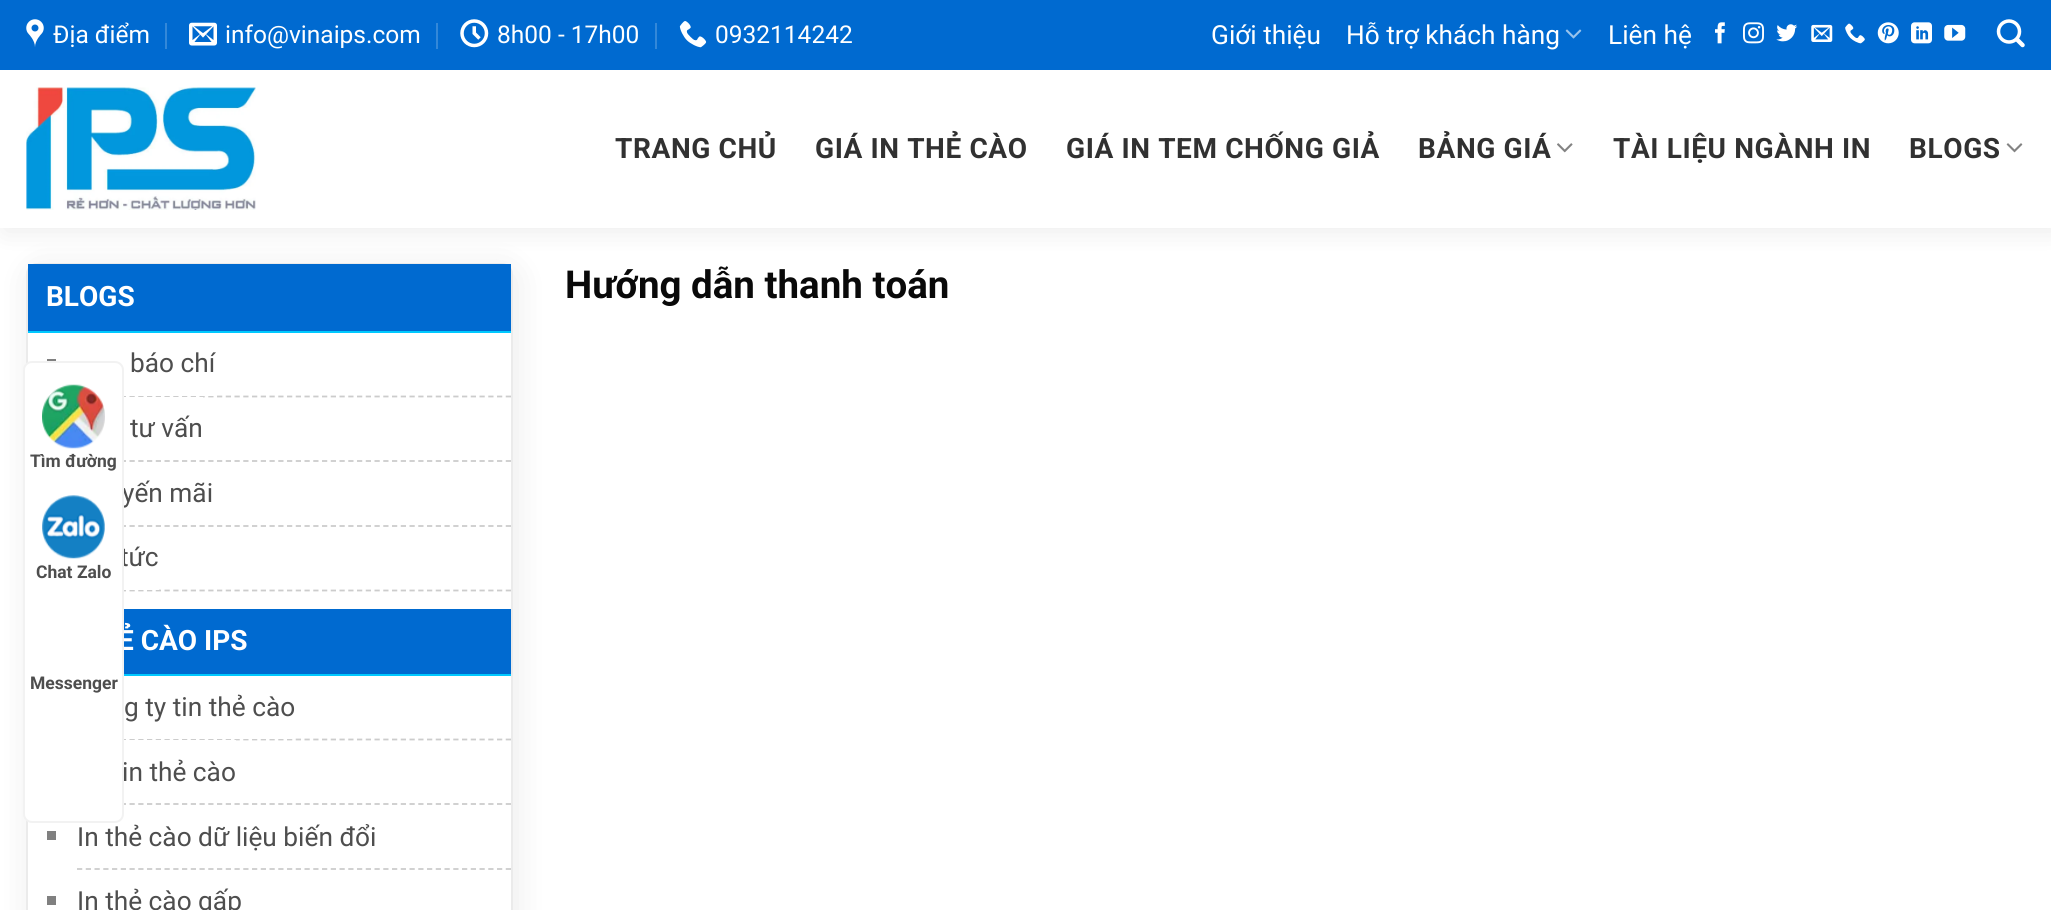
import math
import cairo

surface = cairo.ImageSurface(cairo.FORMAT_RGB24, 2051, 910)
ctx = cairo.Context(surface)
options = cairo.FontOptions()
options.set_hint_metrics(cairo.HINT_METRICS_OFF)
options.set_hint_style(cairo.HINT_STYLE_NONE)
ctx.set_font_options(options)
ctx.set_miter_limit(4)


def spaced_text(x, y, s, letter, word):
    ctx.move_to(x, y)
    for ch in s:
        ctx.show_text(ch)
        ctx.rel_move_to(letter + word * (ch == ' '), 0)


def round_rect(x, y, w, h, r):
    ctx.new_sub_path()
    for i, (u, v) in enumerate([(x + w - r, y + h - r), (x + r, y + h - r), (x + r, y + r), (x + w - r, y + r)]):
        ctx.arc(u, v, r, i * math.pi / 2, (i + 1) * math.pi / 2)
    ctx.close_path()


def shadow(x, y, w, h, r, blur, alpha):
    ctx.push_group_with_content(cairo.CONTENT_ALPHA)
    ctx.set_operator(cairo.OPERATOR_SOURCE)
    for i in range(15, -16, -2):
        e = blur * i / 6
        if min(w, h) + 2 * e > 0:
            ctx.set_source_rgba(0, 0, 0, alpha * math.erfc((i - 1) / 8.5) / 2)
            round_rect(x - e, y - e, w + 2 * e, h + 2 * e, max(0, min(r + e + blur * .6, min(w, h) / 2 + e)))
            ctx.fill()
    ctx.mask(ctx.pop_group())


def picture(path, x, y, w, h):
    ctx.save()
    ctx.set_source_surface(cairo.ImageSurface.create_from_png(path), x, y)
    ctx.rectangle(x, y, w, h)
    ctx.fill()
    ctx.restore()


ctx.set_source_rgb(1, 1, 1)
ctx.paint()
ctx.set_source_rgb(0, 0, 0)
shadow(30, 268, 486, 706, 11, 17.5, 0.08)
ctx.set_source_rgb(1, 1, 1)
round_rect(27, 264, 485, 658, 10)
ctx.fill_preserve()
ctx.set_source_rgb(0.918, 0.918, 0.918)
ctx.stroke()
ctx.set_source_rgb(0, 0.416, 0.816)
ctx.rectangle(28, 264, 483, 67)
ctx.fill()
ctx.save()
ctx.set_fill_rule(cairo.FILL_RULE_EVEN_ODD)
ctx.new_path()
ctx.move_to(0, 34)
ctx.line_to(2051, 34)
ctx.line_to(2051, 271)
ctx.line_to(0, 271)
ctx.close_path()
ctx.move_to(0, 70)
ctx.line_to(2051, 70)
ctx.line_to(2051, 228)
ctx.line_to(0, 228)
ctx.close_path()
ctx.clip()
ctx.set_source_rgb(0, 0, 0)
shadow(4, 74, 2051, 157, 0, 13, 0.08)
ctx.restore()
ctx.rectangle(0, 0, 2051, 70)
ctx.fill()
picture("img1.png", 26, 19, 18, 28)
ctx.select_font_face("Roboto")
ctx.set_font_size(24.5)
ctx.set_source_rgb(1, 1, 1)
ctx.move_to(53, 43)
ctx.show_text("Địa điểm")
ctx.set_source_rgb(0.2, 0.533, 0.851)
ctx.rectangle(165, 23, 2, 26)
ctx.fill()
picture("img2.png", 189, 22, 28, 24)
ctx.set_source_rgb(1, 1, 1)
ctx.move_to(225, 43)
ctx.show_text("info@vinaips.com")
ctx.set_source_rgb(0.2, 0.533, 0.851)
ctx.rectangle(436, 23, 2, 26)
ctx.fill()
picture("img3.png", 460, 19, 29, 29)
ctx.set_source_rgb(1, 1, 1)
ctx.move_to(497, 43)
ctx.show_text("8h00 - 17h00")
ctx.set_source_rgb(0.2, 0.533, 0.851)
ctx.rectangle(655, 23, 2, 26)
ctx.fill()
picture("img4.png", 679, 21, 28, 27)
ctx.set_source_rgb(1, 1, 1)
ctx.move_to(715, 43)
ctx.show_text("0932114242")
ctx.set_font_size(26.25)
ctx.move_to(1211, 44)
ctx.show_text("Giới thiệu")
ctx.move_to(1346, 44)
ctx.show_text("Hỗ trợ khách hàng")
picture("img5.png", 1565, 29, 17, 10)
ctx.move_to(1608, 44)
ctx.show_text("Liên hệ")
picture("img6.png", 1715, 22, 10, 22)
picture("img7.png", 1743, 22, 21, 22)
picture("img8.png", 1776, 24, 22, 18)
picture("img9.png", 1811, 24, 22, 18)
picture("img10.png", 1845, 23, 20, 21)
picture("img11.png", 1877, 22, 22, 22)
picture("img12.png", 1911, 22, 21, 22)
picture("img13.png", 1944, 24, 22, 17)
picture("img14.png", 1996, 19, 29, 29)
picture("img15.png", 26, 87, 230, 123)
ctx.select_font_face("Roboto", cairo.FONT_SLANT_NORMAL, cairo.FONT_WEIGHT_BOLD)
ctx.set_font_size(28)
ctx.set_source_rgb(0.192, 0.192, 0.192)
spaced_text(615, 158, "TRANG CHỦ", 0.6, 0)
spaced_text(815, 158, "GIÁ IN THẺ CÀO", 0.6, 0)
spaced_text(1066, 158, "GIÁ IN TEM CHỐNG GIẢ", 0.6, 0)
spaced_text(1418, 158, "BẢNG GIÁ", 0.6, 0)
picture("img16.png", 1557, 143, 16, 10)
spaced_text(1613, 158, "TÀI LIỆU NGÀNH IN", 0.6, 0)
spaced_text(1909, 158, "BLOGS", 0.6, 0)
picture("img17.png", 2006, 143, 17, 10)
ctx.set_source_rgb(0, 0.788, 1)
ctx.rectangle(28, 331, 483, 2)
ctx.fill()
ctx.set_source_rgb(1, 1, 1)
ctx.move_to(46, 306)
ctx.show_text("BLOGS")
ctx.new_path()
ctx.move_to(77, 396.5)
ctx.line_to(511, 396.5)
ctx.set_source_rgb(0.8, 0.8, 0.8)
ctx.set_line_width(1.8)
ctx.set_dash([5.25, 3.5])
ctx.stroke()
ctx.set_source_rgb(0.502, 0.502, 0.502)
ctx.rectangle(47, 359, 9, 2)
ctx.fill()
ctx.set_source_rgb(1, 1, 1)
ctx.rectangle(77, 395, 137, 1)
ctx.fill()
ctx.select_font_face("Roboto")
ctx.set_font_size(26.25)
ctx.set_source_rgb(0.306, 0.306, 0.306)
ctx.move_to(130, 372)
ctx.show_text("báo chí")
ctx.new_path()
ctx.move_to(77, 461)
ctx.line_to(511, 461)
ctx.set_source_rgb(0.8, 0.8, 0.8)
ctx.stroke()
ctx.set_source_rgb(1, 1, 1)
ctx.rectangle(124, 397, 79, 1)
ctx.fill()
ctx.set_source_rgb(0.306, 0.306, 0.306)
ctx.move_to(130, 437)
ctx.show_text("tư vấn")
ctx.new_path()
ctx.move_to(77, 526)
ctx.line_to(511, 526)
ctx.set_source_rgb(0.8, 0.8, 0.8)
ctx.stroke()
ctx.set_source_rgb(0.306, 0.306, 0.306)
ctx.move_to(122, 502)
ctx.show_text("yến mãi")
ctx.new_path()
ctx.move_to(77, 590.5)
ctx.line_to(511, 590.5)
ctx.set_source_rgb(0.8, 0.8, 0.8)
ctx.stroke()
ctx.set_source_rgb(1, 1, 1)
ctx.rectangle(124, 589, 35, 1)
ctx.fill()
ctx.set_source_rgb(0.306, 0.306, 0.306)
ctx.move_to(120, 566)
ctx.show_text("tức")
ctx.set_source_rgb(0, 0.416, 0.816)
ctx.rectangle(124, 609, 387, 65)
ctx.fill()
ctx.set_source_rgb(0, 0.788, 1)
ctx.rectangle(124, 674, 387, 2)
ctx.fill()
ctx.select_font_face("Roboto", cairo.FONT_SLANT_NORMAL, cairo.FONT_WEIGHT_BOLD)
ctx.set_font_size(28)
ctx.set_source_rgb(1, 1, 1)
ctx.move_to(118, 650)
ctx.show_text("Ẻ CÀO IPS")
ctx.new_path()
ctx.move_to(77, 739.5)
ctx.line_to(511, 739.5)
ctx.set_source_rgb(0.8, 0.8, 0.8)
ctx.stroke()
ctx.set_source_rgb(1, 1, 1)
ctx.rectangle(124, 738, 169, 1)
ctx.fill()
ctx.select_font_face("Roboto")
ctx.set_font_size(26.25)
ctx.set_source_rgb(0.306, 0.306, 0.306)
ctx.move_to(124, 716)
ctx.show_text("g ty tin thẻ cào")
ctx.new_path()
ctx.move_to(77, 804)
ctx.line_to(511, 804)
ctx.set_source_rgb(0.8, 0.8, 0.8)
ctx.stroke()
ctx.set_source_rgb(1, 1, 1)
ctx.rectangle(124, 740, 112, 1)
ctx.fill()
ctx.set_source_rgb(0.306, 0.306, 0.306)
ctx.move_to(122, 781)
ctx.show_text("in thẻ cào")
ctx.new_path()
ctx.move_to(77, 869)
ctx.line_to(511, 869)
ctx.set_source_rgb(0.8, 0.8, 0.8)
ctx.stroke()
ctx.set_source_rgb(0.502, 0.502, 0.502)
ctx.rectangle(47, 831, 9, 9)
ctx.fill()
ctx.set_source_rgb(0.306, 0.306, 0.306)
ctx.move_to(77, 846)
ctx.show_text("In thẻ cào dữ liệu biến đổi")
ctx.set_source_rgb(0.502, 0.502, 0.502)
ctx.rectangle(47, 896, 9, 9)
ctx.fill()
ctx.set_source_rgb(0.306, 0.306, 0.306)
ctx.move_to(77, 910)
ctx.show_text("In thẻ cào gấp")
ctx.select_font_face("Roboto", cairo.FONT_SLANT_NORMAL, cairo.FONT_WEIGHT_BOLD)
ctx.set_font_size(38.5)
ctx.set_source_rgb(0.039, 0.039, 0.039)
ctx.move_to(565, 298)
ctx.show_text("Hướng dẫn thanh toán")
ctx.set_source_rgb(1, 1, 1)
round_rect(24, 362, 99, 460, 8)
ctx.fill_preserve()
ctx.set_source_rgb(0.949, 0.949, 0.949)
ctx.set_line_width(2)
ctx.set_dash([])
ctx.stroke()
picture("img18.png", 42, 384, 63, 65)
ctx.set_font_size(17.5)
ctx.set_source_rgb(0.306, 0.306, 0.306)
ctx.move_to(30, 467)
ctx.show_text("Tìm đường")
picture("img19.png", 42, 495, 63, 64)
ctx.move_to(36, 578)
ctx.show_text("Chat Zalo")
ctx.move_to(30, 689)
ctx.show_text("Messenger")
surface.write_to_png("page.png")
